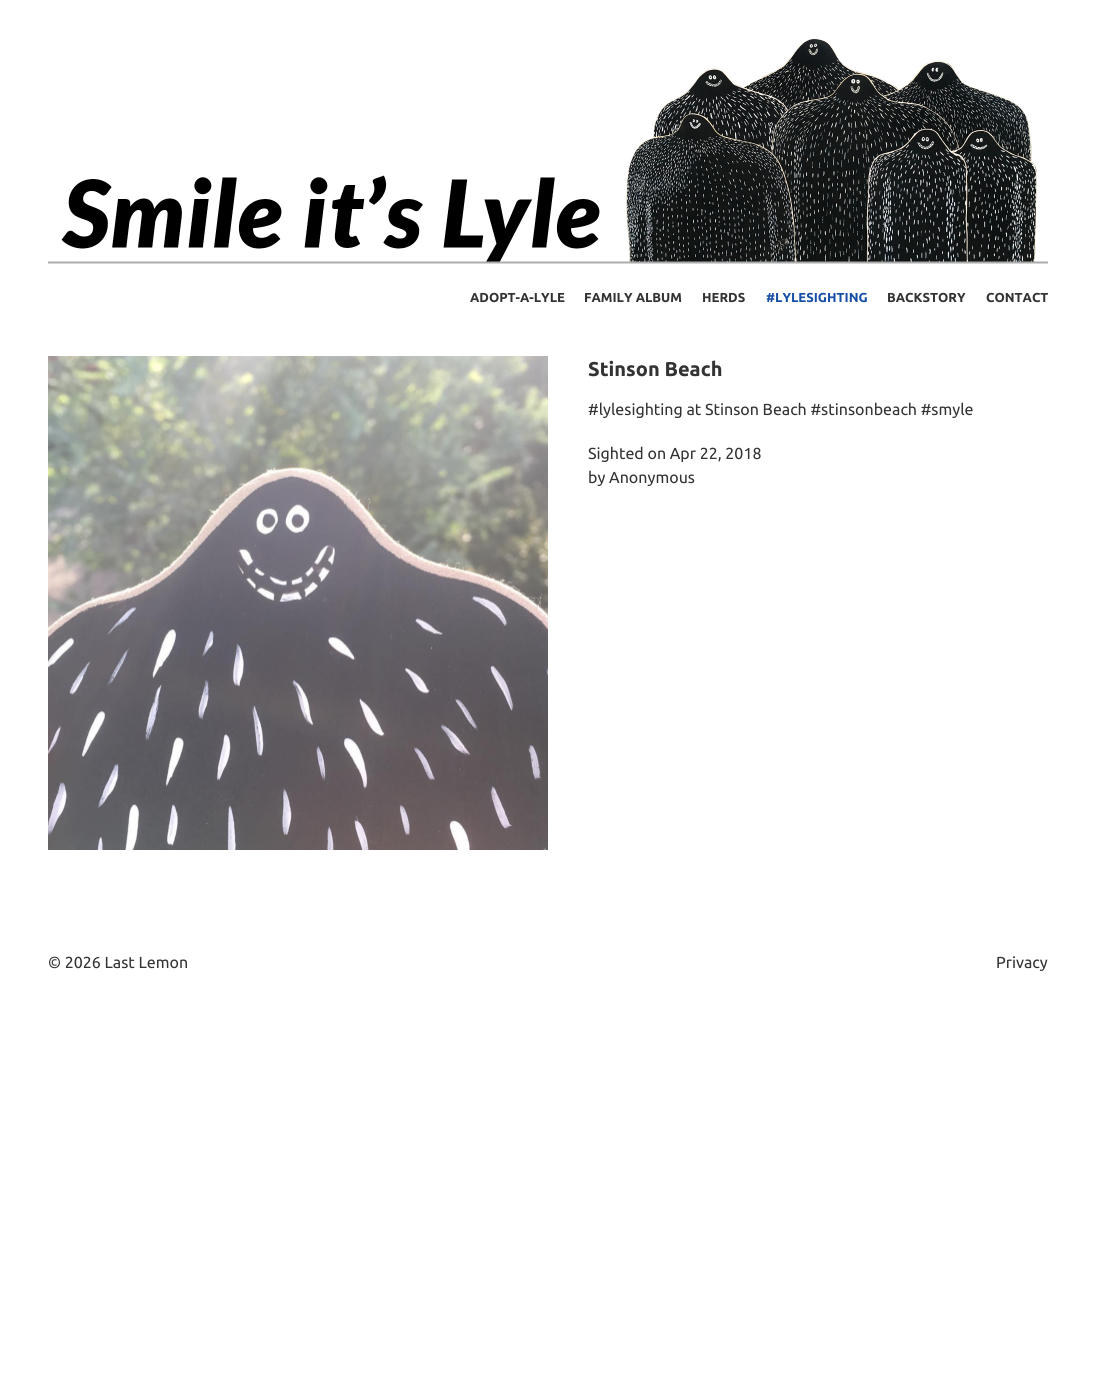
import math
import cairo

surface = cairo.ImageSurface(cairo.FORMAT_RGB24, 1096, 1398)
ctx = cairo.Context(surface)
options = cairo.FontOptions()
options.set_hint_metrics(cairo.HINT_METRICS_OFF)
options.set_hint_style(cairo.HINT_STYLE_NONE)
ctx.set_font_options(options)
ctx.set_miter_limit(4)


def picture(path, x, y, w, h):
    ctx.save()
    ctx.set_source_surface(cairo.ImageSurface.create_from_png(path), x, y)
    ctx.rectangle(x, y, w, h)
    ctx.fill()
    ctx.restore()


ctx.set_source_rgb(1, 1, 1)
ctx.paint()
picture("img1.png", 48, 38, 1000, 226)
ctx.select_font_face("Ubuntu", cairo.FONT_SLANT_NORMAL, cairo.FONT_WEIGHT_BOLD)
ctx.set_font_size(13)
ctx.set_source_rgb(0.2, 0.2, 0.2)
ctx.move_to(470, 302)
ctx.show_text("ADOPT-A-LYLE")
ctx.move_to(584, 302)
ctx.show_text("FAMILY ALBUM")
ctx.move_to(702, 302)
ctx.show_text("HERDS")
ctx.set_source_rgb(0.09, 0.306, 0.651)
ctx.move_to(766, 302)
ctx.show_text("#LYLESIGHTING")
ctx.set_source_rgb(0.2, 0.2, 0.2)
ctx.move_to(887, 302)
ctx.show_text("BACKSTORY")
ctx.move_to(986, 302)
ctx.show_text("CONTACT")
picture("img2.png", 48, 356, 500, 494)
ctx.set_font_size(20)
ctx.move_to(588, 376)
ctx.show_text("Stinson Beach")
ctx.select_font_face("Ubuntu")
ctx.set_font_size(16)
ctx.move_to(588, 415)
ctx.show_text("#lylesighting at Stinson Beach #stinsonbeach #smyle")
ctx.move_to(588, 459)
ctx.show_text("Sighted on Apr 22, 2018")
ctx.move_to(588, 483)
ctx.show_text("by Anonymous")
ctx.move_to(48, 968)
ctx.show_text("© 2026 Last Lemon")
ctx.move_to(996, 968)
ctx.show_text("Privacy")
surface.write_to_png("page.png")
